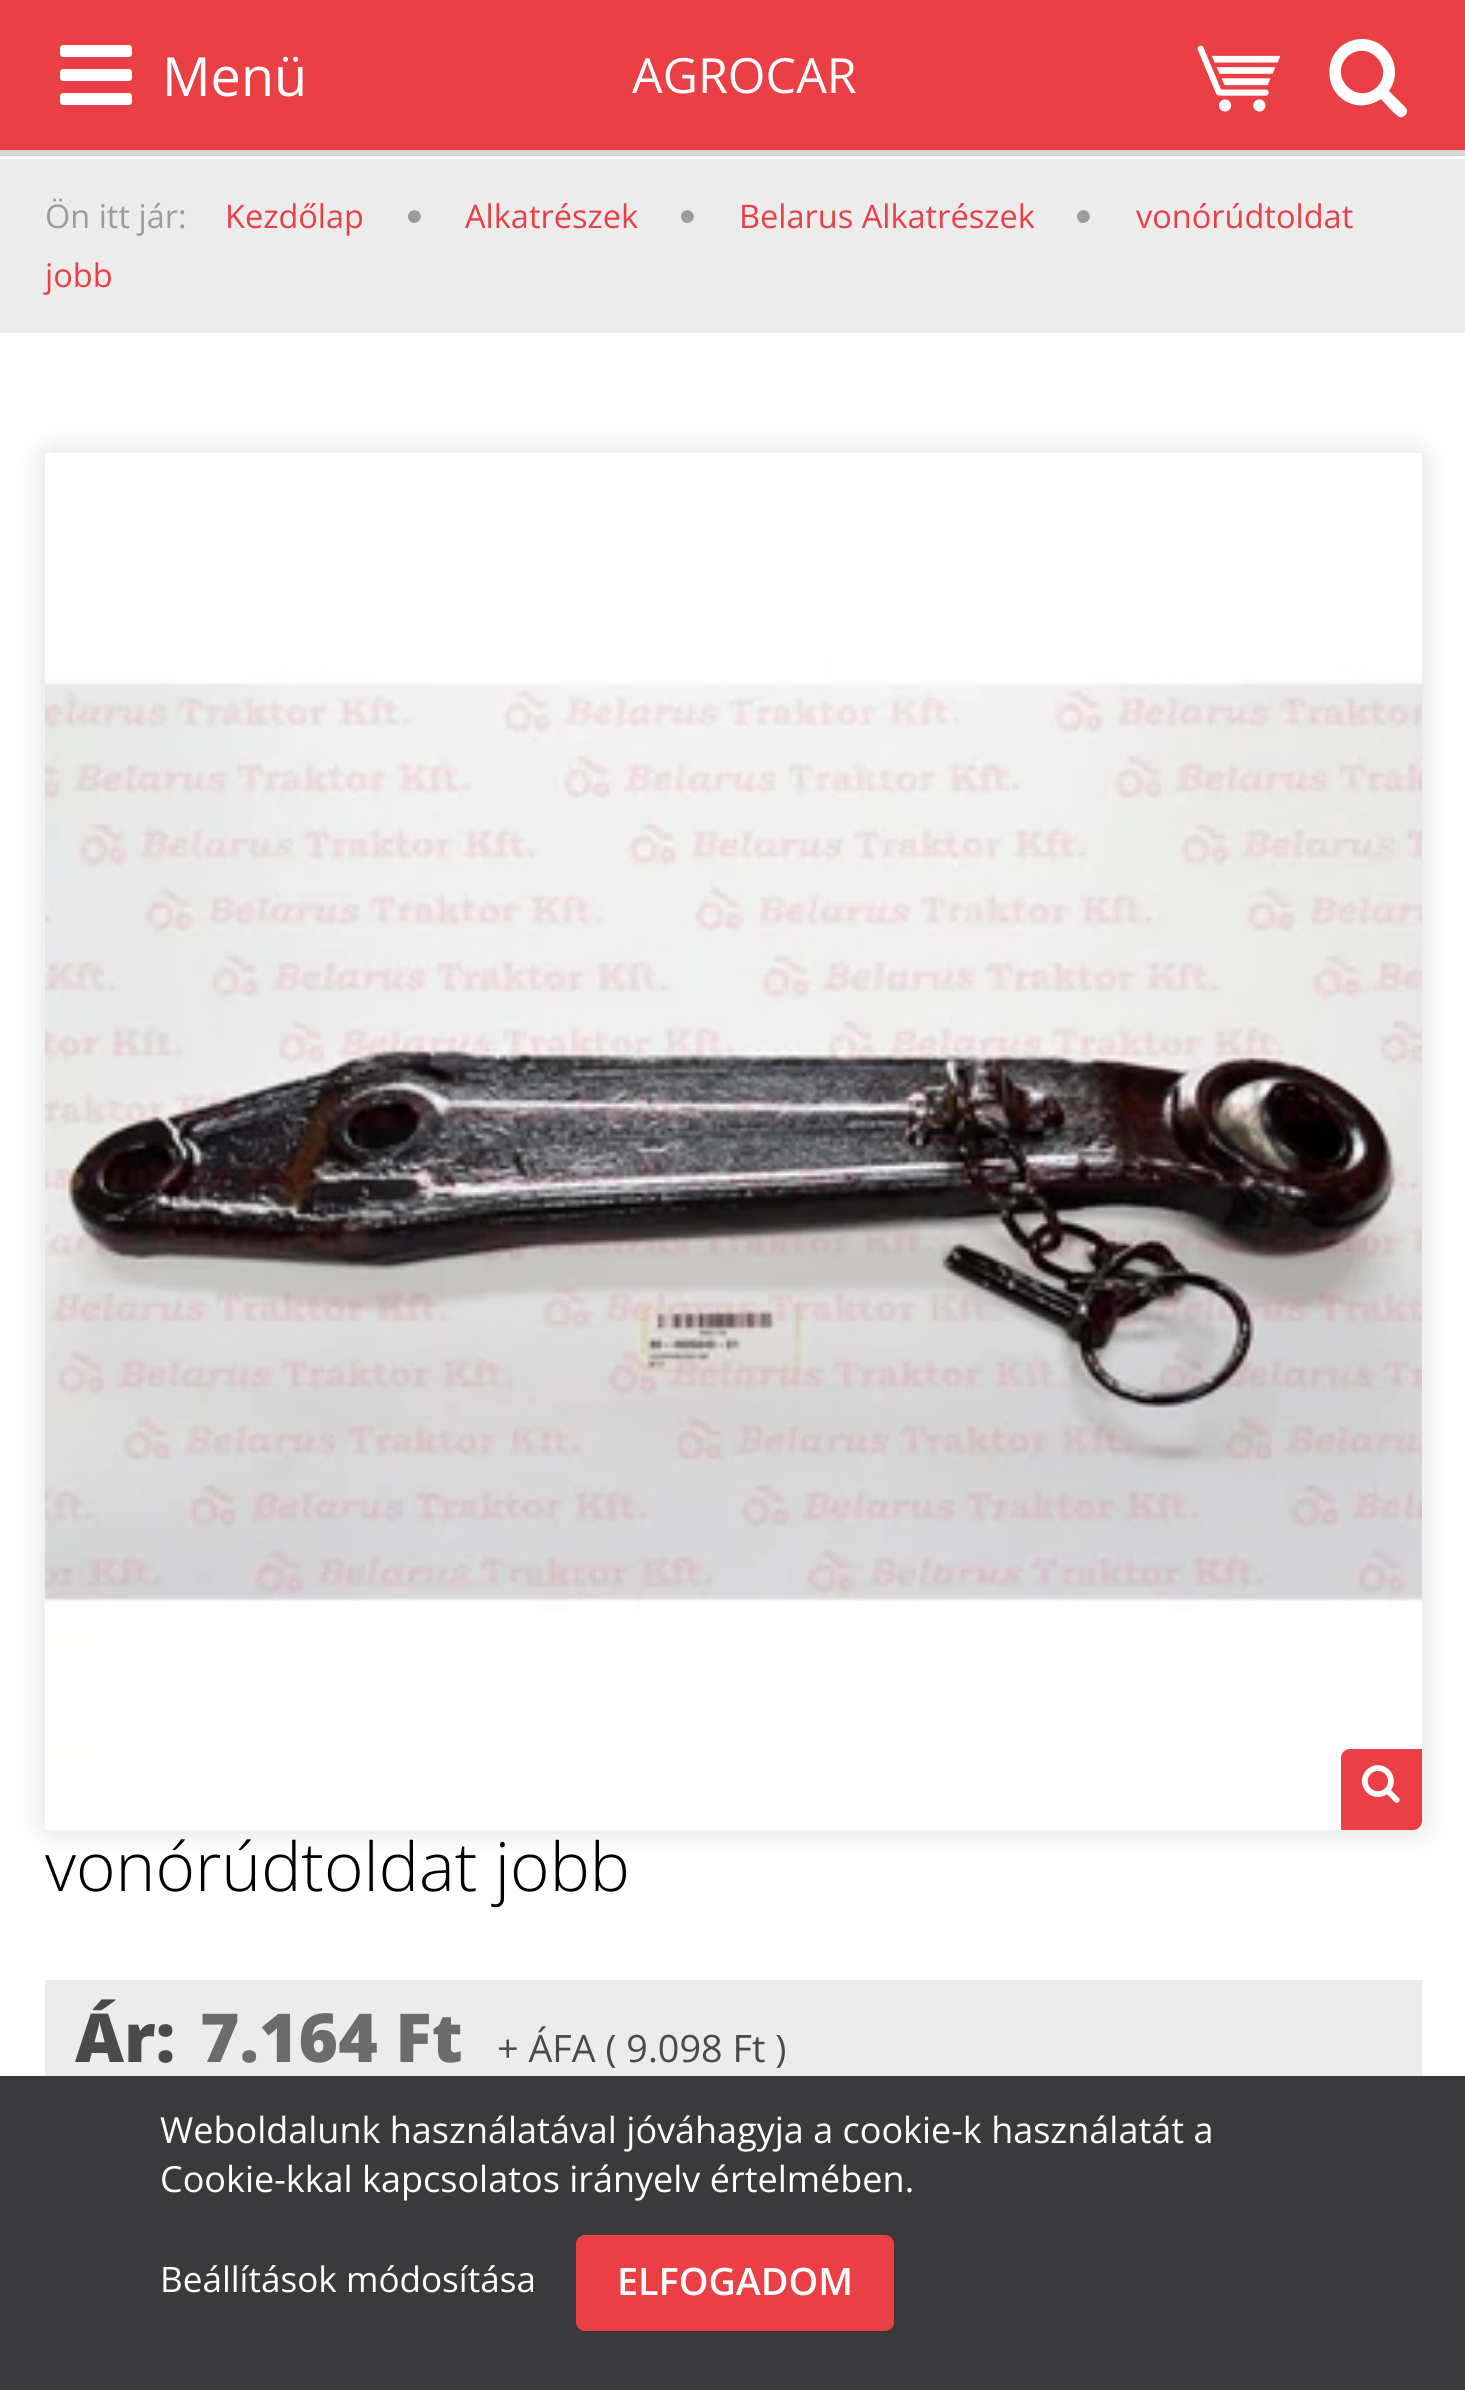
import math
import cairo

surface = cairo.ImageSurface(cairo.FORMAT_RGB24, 1465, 2390)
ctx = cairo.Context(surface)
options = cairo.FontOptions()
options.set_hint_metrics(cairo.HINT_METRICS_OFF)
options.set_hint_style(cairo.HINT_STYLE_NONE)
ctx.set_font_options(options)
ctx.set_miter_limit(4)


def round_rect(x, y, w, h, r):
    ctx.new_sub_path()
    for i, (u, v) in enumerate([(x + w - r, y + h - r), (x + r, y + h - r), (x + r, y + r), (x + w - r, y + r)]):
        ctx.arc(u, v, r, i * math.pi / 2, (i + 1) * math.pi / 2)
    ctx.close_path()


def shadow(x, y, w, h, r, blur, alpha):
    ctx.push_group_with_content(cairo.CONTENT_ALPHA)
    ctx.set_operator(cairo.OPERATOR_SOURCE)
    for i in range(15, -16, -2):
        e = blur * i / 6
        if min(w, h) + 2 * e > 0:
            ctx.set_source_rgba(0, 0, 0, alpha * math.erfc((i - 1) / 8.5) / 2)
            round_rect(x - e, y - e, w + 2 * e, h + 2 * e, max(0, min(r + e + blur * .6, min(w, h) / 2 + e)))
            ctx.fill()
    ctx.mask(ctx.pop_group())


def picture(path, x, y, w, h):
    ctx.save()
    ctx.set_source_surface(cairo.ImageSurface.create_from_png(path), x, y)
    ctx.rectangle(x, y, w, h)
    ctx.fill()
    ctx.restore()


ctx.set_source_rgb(1, 1, 1)
ctx.paint()
ctx.set_source_rgb(0.914, 0.247, 0.271)
ctx.rectangle(0, 0, 1465, 150)
ctx.fill()
picture("img1.png", 60, 45, 72, 60)
ctx.select_font_face("Open Sans")
ctx.set_font_size(54)
ctx.set_source_rgb(1, 1, 1)
ctx.move_to(162, 96)
ctx.show_text("Menü")
ctx.set_font_size(48.5)
ctx.move_to(632, 93)
ctx.show_text("AGROCAR")
picture("img2.png", 1197, 45, 84, 67)
ctx.new_path()
ctx.move_to(1377, 87)
ctx.curve_to(1396, 67, 1367, 38, 1347, 57)
ctx.curve_to(1328, 77, 1357, 106, 1377, 87)
ctx.close_path()
ctx.move_to(1407, 111)
ctx.curve_to(1407, 113, 1406, 115, 1404, 116)
ctx.curve_to(1399, 120, 1395, 113, 1391, 110)
ctx.line_to(1381, 99)
ctx.curve_to(1372, 105, 1362, 107, 1352, 104)
ctx.curve_to(1321, 94, 1322, 48, 1354, 40)
ctx.curve_to(1361, 38, 1369, 39, 1376, 42)
ctx.curve_to(1394, 51, 1401, 74, 1389, 91)
ctx.line_to(1405, 107)
ctx.curve_to(1406, 108, 1407, 109, 1407, 111)
ctx.close_path()
ctx.fill()
ctx.set_source_rgb(0.843, 0.843, 0.843)
ctx.rectangle(0, 150, 1465, 6)
ctx.fill()
ctx.set_source_rgb(0.922, 0.922, 0.922)
ctx.rectangle(0, 159, 1465, 174)
ctx.fill()
ctx.set_font_size(32.5)
ctx.set_source_rgb(0.608, 0.612, 0.612)
ctx.move_to(45, 228)
ctx.show_text("Ön itt jár:")
ctx.set_source_rgb(0.914, 0.247, 0.271)
ctx.move_to(225, 228)
ctx.show_text("Kezdőlap")
ctx.set_source_rgb(0.608, 0.612, 0.612)
ctx.new_path()
ctx.move_to(420, 213.5)
ctx.curve_to(424, 220.5, 413, 227, 409, 220)
ctx.curve_to(404.5, 212.5, 415.5, 206, 420, 213.5)
ctx.close_path()
ctx.fill()
ctx.set_source_rgb(0.914, 0.247, 0.271)
ctx.move_to(465, 228)
ctx.show_text("Alkatrészek")
ctx.set_source_rgb(0.608, 0.612, 0.612)
ctx.new_path()
ctx.move_to(693, 213.5)
ctx.curve_to(697, 220.5, 686, 227, 682, 220)
ctx.curve_to(677.5, 212.5, 688.5, 206, 693, 213.5)
ctx.close_path()
ctx.fill()
ctx.set_source_rgb(0.914, 0.247, 0.271)
ctx.move_to(739, 228)
ctx.show_text("Belarus Alkatrészek")
ctx.set_source_rgb(0.608, 0.612, 0.612)
ctx.new_path()
ctx.move_to(1089, 213.5)
ctx.curve_to(1093, 220.5, 1082, 227, 1078, 220)
ctx.curve_to(1073.5, 212.5, 1084.5, 206, 1089, 213.5)
ctx.close_path()
ctx.fill()
ctx.set_source_rgb(0.914, 0.247, 0.271)
ctx.move_to(1136, 228)
ctx.show_text("vonórúdtoldat")
ctx.move_to(45, 287)
ctx.show_text("jobb")
ctx.set_source_rgb(0, 0, 0)
shadow(39, 447, 1389, 1389, 15, 12, 0.1)
picture("img3.png", 45, 453, 1377, 1377)
ctx.set_source_rgb(0.914, 0.247, 0.271)
ctx.new_path()
ctx.move_to(1350, 1749)
ctx.line_to(1422, 1749)
ctx.line_to(1422, 1821)
ctx.curve_to(1422, 1826, 1418, 1830, 1413, 1830)
ctx.line_to(1341, 1830)
ctx.line_to(1341, 1758)
ctx.curve_to(1341, 1753, 1345, 1749, 1350, 1749)
ctx.close_path()
ctx.fill()
picture("img4.png", 1362, 1765, 38, 38)
ctx.select_font_face("Open Sans Light")
ctx.set_font_size(67.5)
ctx.set_source_rgb(0, 0, 0)
ctx.move_to(45, 1891)
ctx.show_text("vonórúdtoldat jobb")
ctx.set_source_rgb(0.922, 0.922, 0.922)
ctx.rectangle(45, 1980, 1377, 96)
ctx.fill()
ctx.select_font_face("Open Sans ExtraBold")
ctx.set_source_rgb(0.29, 0.29, 0.29)
ctx.move_to(75, 2062)
ctx.show_text("Ár:")
ctx.set_source_rgb(0.424, 0.424, 0.424)
ctx.move_to(200, 2062)
ctx.show_text("7.164 Ft")
ctx.select_font_face("Open Sans")
ctx.set_font_size(37.75)
ctx.set_source_rgb(0.29, 0.29, 0.29)
ctx.move_to(497, 2062)
ctx.show_text("+ ÁFA ( 9.098 Ft )")
ctx.set_source_rgb(0.227, 0.224, 0.231)
ctx.rectangle(0, 2076, 1465, 314)
ctx.fill()
ctx.set_font_size(36)
ctx.set_source_rgb(1, 1, 1)
ctx.move_to(160, 2143)
ctx.show_text("Weboldalunk használatával jóváhagyja a cookie-k használatát a")
ctx.move_to(160, 2192)
ctx.show_text("Cookie-kkal kapcsolatos irányelv értelmében.")
ctx.set_font_size(35.1)
ctx.move_to(160, 2292)
ctx.show_text("Beállítások módosítása")
ctx.set_source_rgb(0.914, 0.247, 0.271)
round_rect(579, 2238, 312, 90, 6)
ctx.fill_preserve()
ctx.set_line_width(6)
ctx.stroke()
ctx.select_font_face("Open Sans SemiBold")
ctx.set_font_size(37.75)
ctx.set_source_rgb(1, 1, 1)
ctx.move_to(617, 2295)
ctx.show_text("ELFOGADOM")
surface.write_to_png("page.png")
